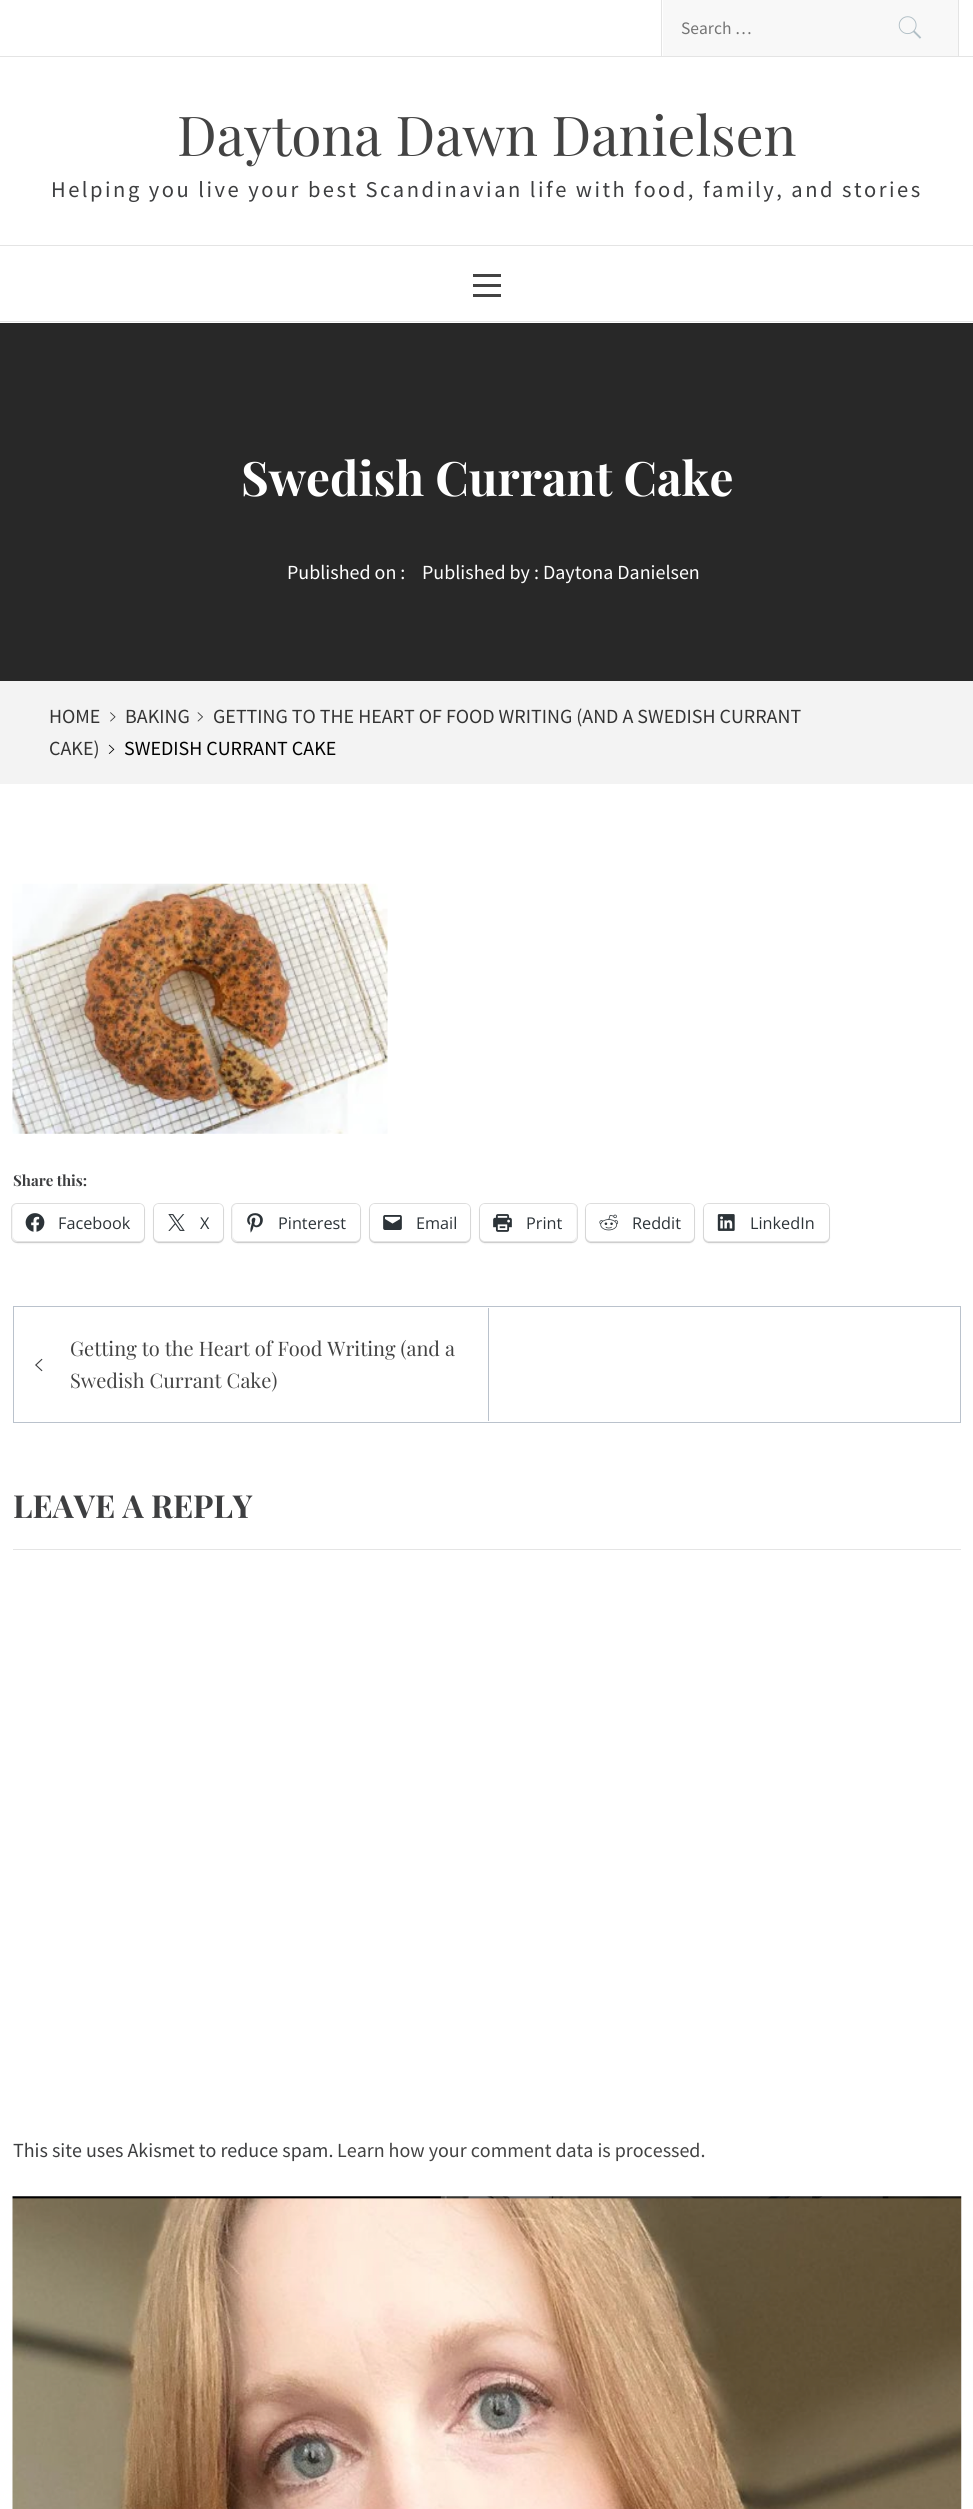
import math
import cairo

surface = cairo.ImageSurface(cairo.FORMAT_RGB24, 973, 2509)
ctx = cairo.Context(surface)
options = cairo.FontOptions()
options.set_hint_metrics(cairo.HINT_METRICS_OFF)
options.set_hint_style(cairo.HINT_STYLE_NONE)
ctx.set_font_options(options)
ctx.set_miter_limit(4)


def spaced_text(x, y, s, letter, word):
    ctx.move_to(x, y)
    for ch in s:
        ctx.show_text(ch)
        ctx.rel_move_to(letter + word * (ch == ' '), 0)


def round_rect(x, y, w, h, r):
    ctx.new_sub_path()
    for i, (u, v) in enumerate([(x + w - r, y + h - r), (x + r, y + h - r), (x + r, y + r), (x + w - r, y + r)]):
        ctx.arc(u, v, r, i * math.pi / 2, (i + 1) * math.pi / 2)
    ctx.close_path()


def shadow(x, y, w, h, r, blur, alpha):
    ctx.push_group_with_content(cairo.CONTENT_ALPHA)
    ctx.set_operator(cairo.OPERATOR_SOURCE)
    for i in range(15, -16, -2):
        e = blur * i / 6
        if min(w, h) + 2 * e > 0:
            ctx.set_source_rgba(0, 0, 0, alpha * math.erfc((i - 1) / 8.5) / 2)
            round_rect(x - e, y - e, w + 2 * e, h + 2 * e, max(0, min(r + e + blur * .6, min(w, h) / 2 + e)))
            ctx.fill()
    ctx.mask(ctx.pop_group())


def picture(path, x, y, w, h):
    ctx.save()
    ctx.set_source_surface(cairo.ImageSurface.create_from_png(path), x, y)
    ctx.rectangle(x, y, w, h)
    ctx.fill()
    ctx.restore()


ctx.set_source_rgb(1, 1, 1)
ctx.paint()
ctx.set_source_rgb(0.894, 0.894, 0.894)
ctx.rectangle(0, 56, 973, 1)
ctx.fill()
ctx.set_source_rgb(0.969, 0.969, 0.969)
ctx.rectangle(663, 0, 295, 56)
ctx.fill()
ctx.set_source_rgb(0.894, 0.894, 0.894)
ctx.rectangle(958, 0, 1, 56)
ctx.fill()
ctx.rectangle(661, 0, 1, 56)
ctx.fill()
ctx.select_font_face("Source Sans Pro")
ctx.set_font_size(17.5)
ctx.set_source_rgb(0.459, 0.459, 0.459)
ctx.move_to(681, 34)
ctx.show_text("Search …")
picture("img1.png", 898, 16, 24, 23)
ctx.select_font_face("Playfair Display")
ctx.set_font_size(55)
ctx.set_source_rgb(0.263, 0.263, 0.263)
ctx.move_to(177, 156)
ctx.show_text("Daytona Dawn Danielsen")
ctx.select_font_face("Source Sans Pro")
ctx.set_font_size(22.5)
ctx.set_source_rgb(0.239, 0.243, 0.251)
spaced_text(51, 197, "Helping you live your best Scandinavian life with food, family, and stories", 2.5, 0)
ctx.set_source_rgb(0.894, 0.894, 0.894)
ctx.rectangle(0, 245, 973, 1)
ctx.fill()
ctx.rectangle(0, 321, 973, 1)
ctx.fill()
ctx.set_source_rgb(0.263, 0.263, 0.263)
ctx.rectangle(473, 284, 28, 3)
ctx.fill()
ctx.rectangle(473, 274, 28, 3)
ctx.fill()
ctx.rectangle(473, 294, 28, 3)
ctx.fill()
ctx.set_source_rgb(0.157, 0.157, 0.157)
ctx.rectangle(0, 323, 973, 358)
ctx.fill()
ctx.select_font_face("Playfair Display", cairo.FONT_SLANT_NORMAL, cairo.FONT_WEIGHT_BOLD)
ctx.set_font_size(47.5)
ctx.set_source_rgb(1, 1, 1)
ctx.move_to(241, 496)
ctx.show_text("Swedish Currant Cake")
ctx.select_font_face("Source Sans Pro")
ctx.set_font_size(20)
ctx.move_to(287, 579)
ctx.show_text("Published on :")
ctx.move_to(422, 579)
ctx.show_text("Published by : Daytona Danielsen")
ctx.set_source_rgb(0.953, 0.953, 0.953)
ctx.rectangle(0, 681, 973, 103)
ctx.fill()
picture("img2.png", 197, 712, 6, 10)
ctx.set_source_rgb(0.2, 0.2, 0.2)
ctx.move_to(213, 723)
ctx.show_text("GETTING TO THE HEART OF FOOD WRITING (AND A SWEDISH CURRANT")
ctx.move_to(49, 755)
ctx.show_text("CAKE)")
ctx.move_to(49, 723)
ctx.show_text("HOME")
picture("img3.png", 110, 712, 6, 10)
ctx.move_to(125, 723)
ctx.show_text("BAKING")
picture("img4.png", 108, 744, 7, 10)
ctx.set_source_rgb(0, 0, 0)
ctx.move_to(124, 755)
ctx.show_text("SWEDISH CURRANT CAKE")
picture("img5.png", 12, 883, 376, 251)
ctx.select_font_face("Playfair Display", cairo.FONT_SLANT_NORMAL, cairo.FONT_WEIGHT_BOLD)
ctx.set_font_size(15)
ctx.set_source_rgb(0.239, 0.243, 0.251)
ctx.move_to(13, 1186)
ctx.show_text("Share this:")
round_rect(11.5, 1203.5, 133, 39, 5.5)
ctx.set_source_rgb(0.878, 0.878, 0.878)
ctx.set_line_width(1)
ctx.stroke()
ctx.set_source_rgb(0, 0, 0)
shadow(13, 1205, 131, 38, 5, 1, 0.12)
ctx.set_source_rgb(1, 1, 1)
round_rect(13, 1204, 131, 37, 5)
ctx.fill()
picture("img6.png", 25, 1213, 20, 19)
ctx.select_font_face("Open Sans")
ctx.set_font_size(16.25)
ctx.set_source_rgb(0.173, 0.2, 0.22)
ctx.move_to(58, 1229)
ctx.show_text("Facebook")
round_rect(153.5, 1203.5, 70, 39, 5.5)
ctx.set_source_rgb(0.878, 0.878, 0.878)
ctx.stroke()
ctx.set_source_rgb(0, 0, 0)
shadow(154, 1205, 69, 38, 5, 1, 0.12)
ctx.set_source_rgb(1, 1, 1)
round_rect(154, 1204, 69, 37, 5)
ctx.fill()
picture("img7.png", 168, 1214, 17, 17)
ctx.set_source_rgb(0.173, 0.2, 0.22)
ctx.move_to(200, 1229)
ctx.show_text("X")
round_rect(231.5, 1203.5, 129, 39, 5.5)
ctx.set_source_rgb(0.878, 0.878, 0.878)
ctx.stroke()
ctx.set_source_rgb(0, 0, 0)
shadow(233, 1205, 127, 38, 5, 1, 0.12)
ctx.set_source_rgb(1, 1, 1)
round_rect(233, 1204, 127, 37, 5)
ctx.fill()
picture("img8.png", 247, 1213, 16, 20)
ctx.set_source_rgb(0.173, 0.2, 0.22)
ctx.move_to(278, 1229)
ctx.show_text("Pinterest")
round_rect(369.5, 1203.5, 101, 39, 5.5)
ctx.set_source_rgb(0.878, 0.878, 0.878)
ctx.stroke()
ctx.set_source_rgb(0, 0, 0)
shadow(370, 1205, 100, 38, 5, 1, 0.12)
ctx.set_source_rgb(1, 1, 1)
round_rect(370, 1204, 100, 37, 5)
ctx.fill()
picture("img9.png", 383, 1215, 19, 15)
ctx.set_source_rgb(0.173, 0.2, 0.22)
ctx.move_to(416, 1229)
ctx.show_text("Email")
round_rect(479.5, 1203.5, 98, 39, 5.5)
ctx.set_source_rgb(0.878, 0.878, 0.878)
ctx.stroke()
ctx.set_source_rgb(0, 0, 0)
shadow(480, 1205, 96, 38, 5, 1, 0.12)
ctx.set_source_rgb(1, 1, 1)
round_rect(480, 1204, 96, 37, 5)
ctx.fill()
picture("img10.png", 493, 1214, 19, 18)
ctx.set_source_rgb(0.173, 0.2, 0.22)
ctx.move_to(526, 1229)
ctx.show_text("Print")
round_rect(585.5, 1203.5, 109, 39, 5.5)
ctx.set_source_rgb(0.878, 0.878, 0.878)
ctx.stroke()
ctx.set_source_rgb(0, 0, 0)
shadow(586, 1205, 108, 38, 5, 1, 0.12)
ctx.set_source_rgb(1, 1, 1)
round_rect(586, 1204, 108, 37, 5)
ctx.fill()
picture("img11.png", 599, 1214, 20, 17)
ctx.set_source_rgb(0.173, 0.2, 0.22)
ctx.move_to(632, 1229)
ctx.show_text("Reddit")
round_rect(703.5, 1203.5, 126, 39, 5.5)
ctx.set_source_rgb(0.878, 0.878, 0.878)
ctx.stroke()
ctx.set_source_rgb(0, 0, 0)
shadow(704, 1205, 125, 38, 5, 1, 0.12)
ctx.set_source_rgb(1, 1, 1)
round_rect(704, 1204, 125, 37, 5)
ctx.fill()
picture("img12.png", 717, 1214, 18, 17)
ctx.set_source_rgb(0.173, 0.2, 0.22)
ctx.move_to(750, 1229)
ctx.show_text("LinkedIn")
ctx.rectangle(13.5, 1306.5, 947, 116)
ctx.set_source_rgb(0.729, 0.761, 0.8)
ctx.stroke()
picture("img13.png", 35, 1358, 8, 14)
ctx.select_font_face("Playfair Display")
ctx.set_font_size(20)
ctx.set_source_rgb(0.263, 0.263, 0.263)
ctx.move_to(70, 1356)
ctx.show_text("Getting to the Heart of Food Writing (and a")
ctx.move_to(70, 1388)
ctx.show_text("Swedish Currant Cake)")
ctx.set_source_rgb(0.729, 0.761, 0.8)
ctx.rectangle(488, 1308, 1, 113)
ctx.fill()
ctx.set_source_rgb(0.898, 0.898, 0.898)
ctx.rectangle(13, 1549, 948, 1)
ctx.fill()
ctx.select_font_face("Playfair Display", cairo.FONT_SLANT_NORMAL, cairo.FONT_WEIGHT_BOLD)
ctx.set_font_size(31.75)
ctx.set_source_rgb(0.239, 0.243, 0.251)
ctx.move_to(13, 1518)
ctx.show_text("LEAVE A REPLY")
ctx.select_font_face("Source Sans Pro")
ctx.set_font_size(20)
ctx.move_to(13, 2157)
ctx.show_text("This site uses Akismet to reduce spam.")
ctx.set_source_rgb(0.263, 0.263, 0.263)
ctx.move_to(337, 2157)
ctx.show_text("Learn how your comment data is processed.")
picture("img14.png", 12, 2196, 950, 313)
surface.write_to_png("page.png")
